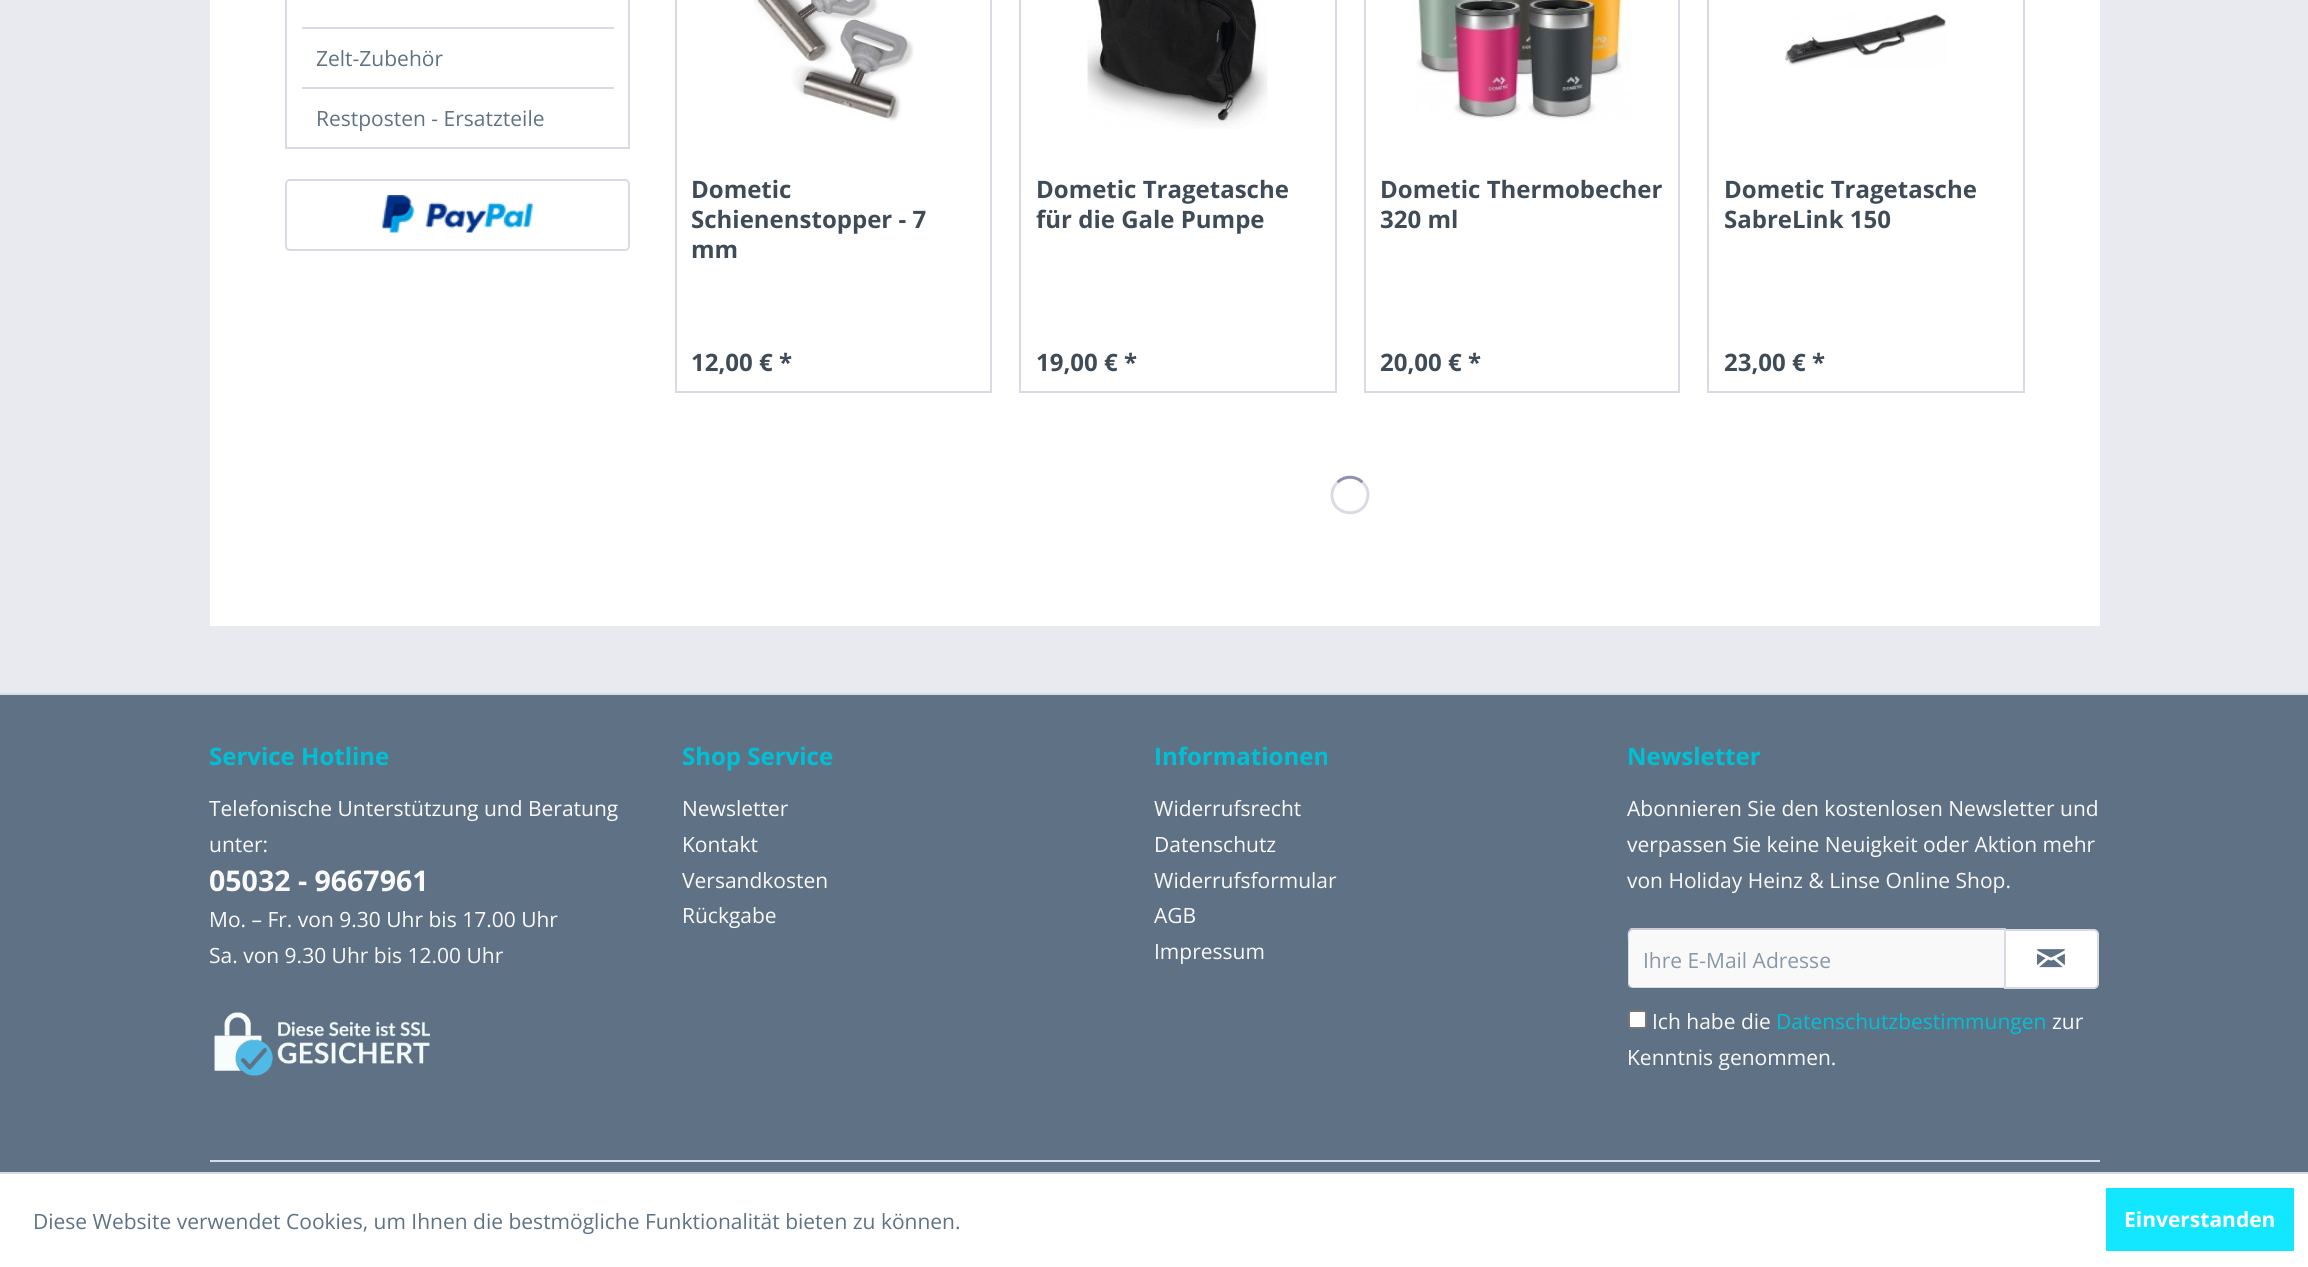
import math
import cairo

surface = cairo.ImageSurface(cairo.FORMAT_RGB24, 2308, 1267)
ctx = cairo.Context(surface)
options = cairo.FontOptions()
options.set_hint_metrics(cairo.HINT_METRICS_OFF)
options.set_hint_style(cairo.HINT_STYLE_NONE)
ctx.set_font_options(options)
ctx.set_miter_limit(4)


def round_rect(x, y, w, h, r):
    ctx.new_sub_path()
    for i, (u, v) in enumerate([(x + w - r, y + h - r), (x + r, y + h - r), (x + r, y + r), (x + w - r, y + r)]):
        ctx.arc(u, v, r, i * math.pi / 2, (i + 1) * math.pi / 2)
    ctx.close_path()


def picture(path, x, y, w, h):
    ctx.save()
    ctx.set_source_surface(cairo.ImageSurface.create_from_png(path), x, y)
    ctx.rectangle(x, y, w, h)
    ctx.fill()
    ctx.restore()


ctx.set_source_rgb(0.914, 0.914, 0.941)
ctx.paint()
ctx.set_source_rgb(1, 1, 1)
ctx.rectangle(210, 0, 1890, 626)
ctx.fill()
ctx.rectangle(286, -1, 343, 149)
ctx.set_source_rgb(0.855, 0.855, 0.898)
ctx.stroke()
ctx.rectangle(302, 27, 312, 2)
ctx.fill()
ctx.rectangle(302, 87, 312, 2)
ctx.fill()
ctx.select_font_face("Open Sans")
ctx.set_font_size(21)
ctx.set_source_rgb(0.373, 0.447, 0.522)
ctx.move_to(316, 66)
ctx.show_text("Zelt-Zubehör")
ctx.move_to(316, 126)
ctx.show_text("Restposten - Ersatzteile")
round_rect(286, 180, 343, 70, 4)
ctx.set_source_rgb(0.855, 0.855, 0.898)
ctx.stroke()
picture("img1.png", 382, 195, 151, 38)
ctx.rectangle(676, -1, 315, 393)
ctx.stroke()
picture("img2.png", 753, 0, 161, 122)
ctx.select_font_face("Open Sans", cairo.FONT_SLANT_NORMAL, cairo.FONT_WEIGHT_BOLD)
ctx.set_font_size(24)
ctx.set_source_rgb(0.247, 0.298, 0.345)
ctx.move_to(691, 198)
ctx.show_text("Dometic")
ctx.move_to(691, 228)
ctx.show_text("Schienenstopper - 7")
ctx.move_to(691, 258)
ctx.show_text("mm")
ctx.move_to(691, 371)
ctx.show_text("12,00 € *")
ctx.rectangle(1020, -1, 316, 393)
ctx.set_source_rgb(0.855, 0.855, 0.898)
ctx.stroke()
picture("img3.png", 1087, 0, 181, 129)
ctx.set_source_rgb(0.247, 0.298, 0.345)
ctx.move_to(1036, 198)
ctx.show_text("Dometic Tragetasche")
ctx.move_to(1036, 228)
ctx.show_text("für die Gale Pumpe")
ctx.move_to(1036, 371)
ctx.show_text("19,00 € *")
ctx.rectangle(1365, -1, 314, 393)
ctx.set_source_rgb(0.855, 0.855, 0.898)
ctx.stroke()
picture("img4.png", 1416, 0, 215, 121)
ctx.set_source_rgb(0.247, 0.298, 0.345)
ctx.move_to(1380, 198)
ctx.show_text("Dometic Thermobecher")
ctx.move_to(1380, 228)
ctx.show_text("320 ml")
ctx.move_to(1380, 371)
ctx.show_text("20,00 € *")
ctx.rectangle(1708, -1, 316, 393)
ctx.set_source_rgb(0.855, 0.855, 0.898)
ctx.stroke()
picture("img5.png", 1784, 14, 164, 52)
ctx.set_source_rgb(0.247, 0.298, 0.345)
ctx.move_to(1724, 198)
ctx.show_text("Dometic Tragetasche")
ctx.move_to(1724, 228)
ctx.show_text("SabreLink 150")
ctx.move_to(1724, 371)
ctx.show_text("23,00 € *")
ctx.new_path()
ctx.move_to(1337.5, 482.5)
ctx.curve_to(1344, 475.5, 1356, 475.5, 1362.5, 482.5)
ctx.set_source_rgb(0.561, 0.561, 0.694)
ctx.set_line_width(3)
ctx.stroke()
ctx.new_path()
ctx.move_to(1362.5, 482.5)
ctx.curve_to(1367, 486.5, 1369, 492.5, 1367.5, 498.5)
ctx.curve_to(1363.5, 519.5, 1332, 516.5, 1332, 495)
ctx.curve_to(1332, 490.5, 1334, 485.5, 1337.5, 482.5)
ctx.set_source_rgb(0.855, 0.855, 0.898)
ctx.stroke()
ctx.set_source_rgb(0.373, 0.447, 0.522)
ctx.rectangle(0, 695, 2308, 477)
ctx.fill()
ctx.set_source_rgb(0.855, 0.855, 0.898)
ctx.rectangle(0, 693, 2308, 2)
ctx.fill()
ctx.rectangle(210, 1160, 1890, 2)
ctx.fill()
ctx.set_source_rgb(0, 0.753, 0.839)
ctx.move_to(209, 765)
ctx.show_text("Service Hotline")
ctx.select_font_face("Open Sans")
ctx.set_font_size(21)
ctx.set_source_rgb(0.976, 0.976, 0.976)
ctx.move_to(209, 816)
ctx.show_text("Telefonische Unterstützung und Beratung")
ctx.move_to(209, 852)
ctx.show_text("unter:")
ctx.select_font_face("Open Sans", cairo.FONT_SLANT_NORMAL, cairo.FONT_WEIGHT_BOLD)
ctx.set_font_size(28.5)
ctx.move_to(209, 891)
ctx.show_text("05032 - 9667961")
ctx.select_font_face("Open Sans")
ctx.set_font_size(21)
ctx.move_to(209, 927)
ctx.show_text("Mo. – Fr. von 9.30 Uhr bis 17.00 Uhr")
ctx.move_to(209, 963)
ctx.show_text("Sa. von 9.30 Uhr bis 12.00 Uhr")
picture("img6.png", 214, 1012, 216, 64)
ctx.select_font_face("Open Sans", cairo.FONT_SLANT_NORMAL, cairo.FONT_WEIGHT_BOLD)
ctx.set_font_size(24)
ctx.set_source_rgb(0, 0.753, 0.839)
ctx.move_to(682, 765)
ctx.show_text("Shop Service")
ctx.select_font_face("Open Sans")
ctx.set_font_size(21)
ctx.set_source_rgb(0.976, 0.976, 0.976)
ctx.move_to(682, 816)
ctx.show_text("Newsletter")
ctx.move_to(682, 852)
ctx.show_text("Kontakt")
ctx.move_to(682, 888)
ctx.show_text("Versandkosten")
ctx.move_to(682, 923)
ctx.show_text("Rückgabe")
ctx.select_font_face("Open Sans", cairo.FONT_SLANT_NORMAL, cairo.FONT_WEIGHT_BOLD)
ctx.set_font_size(24)
ctx.set_source_rgb(0, 0.753, 0.839)
ctx.move_to(1154, 765)
ctx.show_text("Informationen")
ctx.select_font_face("Open Sans")
ctx.set_font_size(21)
ctx.set_source_rgb(0.976, 0.976, 0.976)
ctx.move_to(1154, 816)
ctx.show_text("Widerrufsrecht")
ctx.move_to(1154, 852)
ctx.show_text("Datenschutz")
ctx.move_to(1154, 888)
ctx.show_text("Widerrufsformular")
ctx.move_to(1154, 923)
ctx.show_text("AGB")
ctx.move_to(1154, 959)
ctx.show_text("Impressum")
ctx.select_font_face("Open Sans", cairo.FONT_SLANT_NORMAL, cairo.FONT_WEIGHT_BOLD)
ctx.set_font_size(24)
ctx.set_source_rgb(0, 0.753, 0.839)
ctx.move_to(1627, 765)
ctx.show_text("Newsletter")
ctx.select_font_face("Open Sans")
ctx.set_font_size(21)
ctx.set_source_rgb(0.976, 0.976, 0.976)
ctx.move_to(1627, 816)
ctx.show_text("Abonnieren Sie den kostenlosen Newsletter und")
ctx.move_to(1627, 852)
ctx.show_text("verpassen Sie keine Neuigkeit oder Aktion mehr")
ctx.move_to(1627, 888)
ctx.show_text("von Holiday Heinz & Linse Online Shop.")
ctx.set_source_rgb(0.973, 0.973, 0.98)
ctx.new_path()
ctx.move_to(1632, 930)
ctx.line_to(2004, 930)
ctx.line_to(2004, 987)
ctx.line_to(1632, 987)
ctx.curve_to(1630.5, 987, 1629, 985.5, 1629, 984)
ctx.line_to(1629, 933)
ctx.curve_to(1629, 931.5, 1630.5, 930, 1632, 930)
ctx.close_path()
ctx.fill()
ctx.set_source_rgb(0.796, 0.796, 0.859)
ctx.new_path()
ctx.move_to(1632, 930)
ctx.line_to(1630, 931)
ctx.line_to(1629, 930)
ctx.line_to(1631, 928)
ctx.line_to(2006, 928)
ctx.line_to(2004, 930)
ctx.close_path()
ctx.fill()
ctx.set_source_rgb(0.855, 0.855, 0.898)
ctx.new_path()
ctx.move_to(2006, 928)
ctx.line_to(2006, 988)
ctx.line_to(2004, 987)
ctx.line_to(2004, 930)
ctx.close_path()
ctx.fill()
ctx.new_path()
ctx.move_to(2005, 988)
ctx.line_to(1632, 988)
ctx.line_to(1629, 987)
ctx.line_to(1630, 986)
ctx.line_to(1632, 987)
ctx.line_to(2004, 987)
ctx.close_path()
ctx.fill()
ctx.new_path()
ctx.move_to(1629, 987)
ctx.line_to(1628, 984)
ctx.line_to(1628, 942)
ctx.curve_to(1628, 938, 1627, 933, 1629, 930)
ctx.line_to(1630, 931)
ctx.line_to(1629, 932)
ctx.line_to(1629, 985)
ctx.line_to(1630, 986)
ctx.close_path()
ctx.fill()
ctx.set_source_rgb(0.529, 0.596, 0.663)
ctx.move_to(1643, 968)
ctx.show_text("Ihre E-Mail Adresse")
ctx.set_source_rgb(1, 1, 1)
ctx.new_path()
ctx.move_to(2005, 930)
ctx.line_to(2094, 930)
ctx.curve_to(2096, 930, 2098, 932, 2098, 934)
ctx.line_to(2098, 984)
ctx.curve_to(2098, 986, 2096, 988, 2094, 988)
ctx.line_to(2005, 988)
ctx.close_path()
ctx.fill_preserve()
ctx.set_source_rgb(0.855, 0.855, 0.898)
ctx.set_line_width(2)
ctx.stroke()
picture("img7.png", 2037, 949, 28, 19)
ctx.set_source_rgb(1, 1, 1)
round_rect(1629, 1011, 17, 17, 2)
ctx.fill_preserve()
ctx.set_source_rgb(0.463, 0.463, 0.463)
ctx.stroke()
ctx.set_source_rgb(0.976, 0.976, 0.976)
ctx.move_to(1652, 1029)
ctx.show_text("Ich habe die")
ctx.set_source_rgb(0, 0.753, 0.839)
ctx.move_to(1776, 1029)
ctx.show_text("Datenschutzbestimmungen")
ctx.set_source_rgb(0.976, 0.976, 0.976)
ctx.move_to(2052, 1029)
ctx.show_text("zur")
ctx.move_to(1627, 1065)
ctx.show_text("Kenntnis genommen.")
ctx.set_source_rgb(1, 1, 1)
ctx.rectangle(0, 1174, 2308, 93)
ctx.fill()
ctx.set_source_rgb(0.855, 0.855, 0.898)
ctx.rectangle(0, 1172, 2308, 2)
ctx.fill()
ctx.set_source_rgb(0.373, 0.447, 0.522)
ctx.move_to(33, 1229)
ctx.show_text("Diese Website verwendet Cookies, um Ihnen die bestmögliche Funktionalität bieten zu können.")
ctx.set_source_rgb(0.078, 0.906, 1)
ctx.rectangle(2106, 1188, 188, 63)
ctx.fill()
ctx.select_font_face("Open Sans", cairo.FONT_SLANT_NORMAL, cairo.FONT_WEIGHT_BOLD)
ctx.set_source_rgb(1, 1, 1)
ctx.move_to(2124, 1227)
ctx.show_text("Einverstanden")
surface.write_to_png("page.png")
